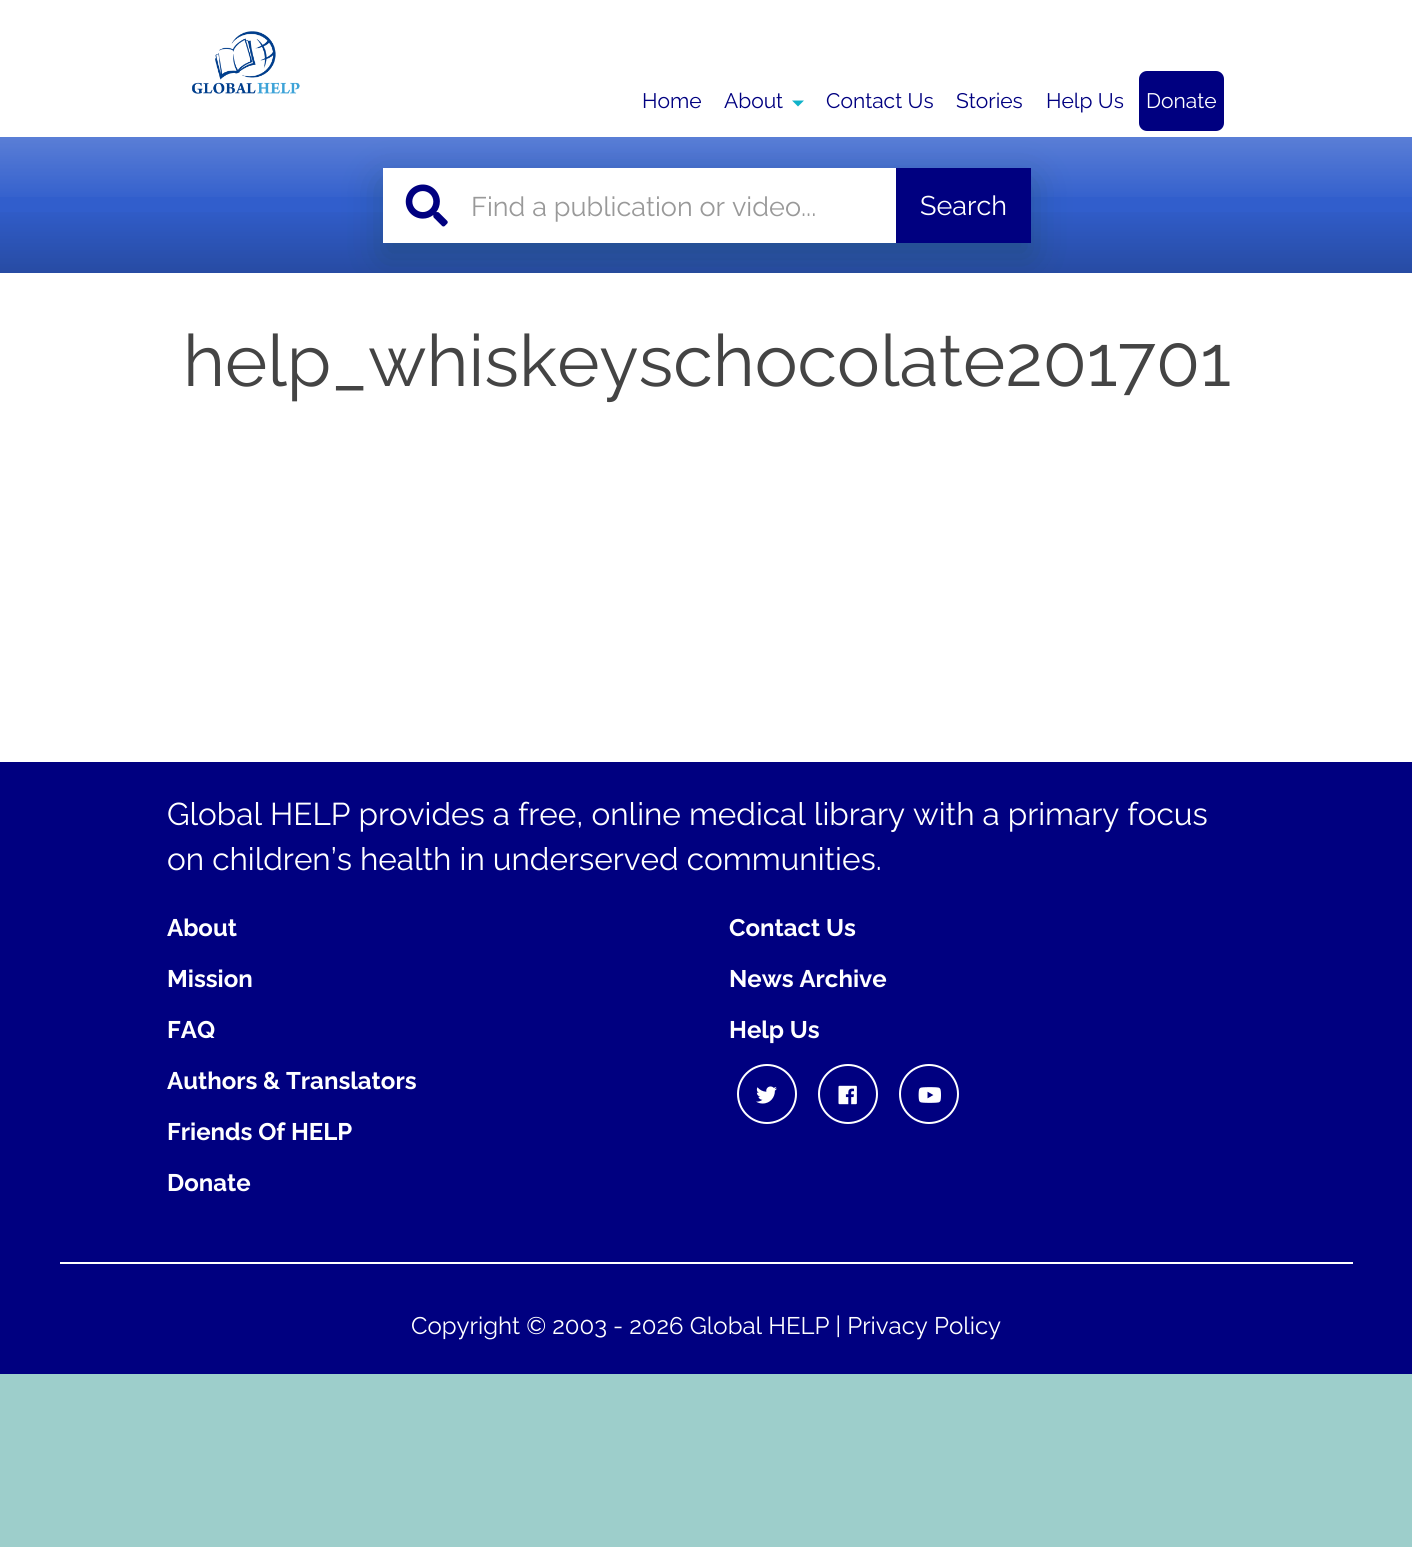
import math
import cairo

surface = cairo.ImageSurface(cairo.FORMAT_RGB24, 1412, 1547)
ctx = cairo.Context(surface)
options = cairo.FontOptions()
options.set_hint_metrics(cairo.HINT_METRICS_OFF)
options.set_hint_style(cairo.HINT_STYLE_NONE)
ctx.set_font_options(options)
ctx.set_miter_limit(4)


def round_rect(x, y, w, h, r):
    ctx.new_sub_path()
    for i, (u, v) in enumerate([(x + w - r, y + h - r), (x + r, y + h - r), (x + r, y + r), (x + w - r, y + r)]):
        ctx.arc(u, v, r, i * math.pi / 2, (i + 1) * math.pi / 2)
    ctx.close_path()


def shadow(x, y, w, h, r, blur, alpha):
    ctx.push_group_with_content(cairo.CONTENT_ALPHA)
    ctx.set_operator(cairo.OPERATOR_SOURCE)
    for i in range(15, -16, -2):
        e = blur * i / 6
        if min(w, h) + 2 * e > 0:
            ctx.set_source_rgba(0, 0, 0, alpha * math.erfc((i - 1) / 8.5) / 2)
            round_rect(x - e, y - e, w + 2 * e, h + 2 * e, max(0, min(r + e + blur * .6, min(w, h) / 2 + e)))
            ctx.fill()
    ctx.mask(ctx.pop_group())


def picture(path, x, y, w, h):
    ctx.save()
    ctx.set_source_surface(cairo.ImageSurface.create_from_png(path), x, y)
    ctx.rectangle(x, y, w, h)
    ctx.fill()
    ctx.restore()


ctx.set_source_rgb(0.616, 0.808, 0.796)
ctx.paint()
ctx.set_source_rgb(0.192, 0.369, 0.8)
ctx.rectangle(0, 137, 1412, 136)
ctx.fill()
ctx.set_source_rgb(1, 1, 1)
ctx.rectangle(0, 0, 1412, 137)
ctx.fill()
gradient = cairo.LinearGradient(707, 0, 707, 273)
gradient.add_color_stop_rgba(0.75, 0, 0, 0, 0)
gradient.add_color_stop_rgba(1, 0, 0, 0, 0.2)
ctx.set_source(gradient)
ctx.rectangle(0, 212, 1412, 61)
ctx.fill()
gradient = cairo.LinearGradient(707, 0, 707, 273)
gradient.add_color_stop_rgba(0.5, 1, 1, 1, 0.2)
gradient.add_color_stop_rgba(0.75, 1, 1, 1, 0)
ctx.set_source(gradient)
ctx.rectangle(0, 137, 1412, 60)
ctx.fill()
picture("img1.png", 192, 31, 108, 63)
ctx.select_font_face("Raleway")
ctx.set_font_size(21)
ctx.set_source_rgb(0, 0, 0.502)
ctx.move_to(642, 108)
ctx.show_text("Home")
ctx.move_to(724, 108)
ctx.show_text("About")
ctx.set_source_rgb(0.063, 0.698, 0.788)
ctx.new_path()
ctx.move_to(792, 100.5)
ctx.line_to(804, 100.5)
ctx.line_to(798, 106.5)
ctx.close_path()
ctx.fill()
ctx.set_source_rgb(0, 0, 0.502)
ctx.move_to(826, 108)
ctx.show_text("Contact Us")
ctx.move_to(956, 108)
ctx.show_text("Stories")
ctx.move_to(1046, 108)
ctx.show_text("Help Us")
round_rect(1139, 71, 85, 60, 8)
ctx.fill()
ctx.set_source_rgb(1, 1, 1)
ctx.move_to(1146, 108)
ctx.show_text("Donate")
ctx.set_source_rgb(0.09, 0.267, 0.255)
shadow(383, 182, 648, 75, 0, 19.5, 0.35)
ctx.set_source_rgb(1, 1, 1)
ctx.rectangle(383, 168, 513, 75)
ctx.fill()
picture("img2.png", 405, 184, 43, 43)
ctx.set_source_rgb(0, 0, 0.502)
ctx.rectangle(896, 168, 135, 75)
ctx.fill()
ctx.set_font_size(27)
ctx.set_source_rgb(1, 1, 1)
ctx.move_to(920, 215)
ctx.show_text("Search")
ctx.set_source_rgb(0.6, 0.6, 0.6)
ctx.move_to(471, 216)
ctx.show_text("Find a publication or video...")
ctx.set_source_rgb(1, 1, 1)
ctx.rectangle(0, 273, 1412, 489)
ctx.fill()
ctx.set_font_size(72)
ctx.set_source_rgb(0.267, 0.267, 0.267)
ctx.move_to(183, 386)
ctx.show_text("help_whiskeyschocolate201701")
ctx.set_source_rgb(0, 0, 0.502)
ctx.rectangle(0, 762, 1412, 612)
ctx.fill()
ctx.set_font_size(31.5)
ctx.set_source_rgb(1, 1, 1)
ctx.move_to(167, 825)
ctx.show_text("Global HELP provides a free, online medical library with a primary focus")
ctx.move_to(167, 870)
ctx.show_text("on children’s health in underserved communities.")
ctx.select_font_face("Raleway", cairo.FONT_SLANT_NORMAL, cairo.FONT_WEIGHT_BOLD)
ctx.set_font_size(24)
ctx.move_to(167, 936)
ctx.show_text("About")
ctx.move_to(167, 987)
ctx.show_text("Mission")
ctx.move_to(167, 1038)
ctx.show_text("FAQ")
ctx.move_to(167, 1089)
ctx.show_text("Authors & Translators")
ctx.move_to(167, 1140)
ctx.show_text("Friends Of HELP")
ctx.move_to(167, 1191)
ctx.show_text("Donate")
ctx.move_to(729, 936)
ctx.show_text("Contact Us")
ctx.move_to(729, 987)
ctx.show_text("News Archive")
ctx.move_to(729, 1038)
ctx.show_text("Help Us")
ctx.new_path()
ctx.arc(767, 1094, 29, 0, 2 * math.pi)
ctx.stroke()
picture("img3.png", 756, 1086, 21, 18)
ctx.arc(848, 1094, 29, 0, 2 * math.pi)
ctx.stroke()
picture("img4.png", 838, 1085, 19, 20)
ctx.arc(929, 1094, 29, 0, 2 * math.pi)
ctx.stroke()
picture("img5.png", 918, 1087, 23, 16)
ctx.rectangle(60, 1262, 1293, 2)
ctx.fill()
ctx.select_font_face("Raleway")
ctx.move_to(411, 1334)
ctx.show_text("Copyright © 2003 - 2026 Global HELP | Privacy Policy")
surface.write_to_png("page.png")
